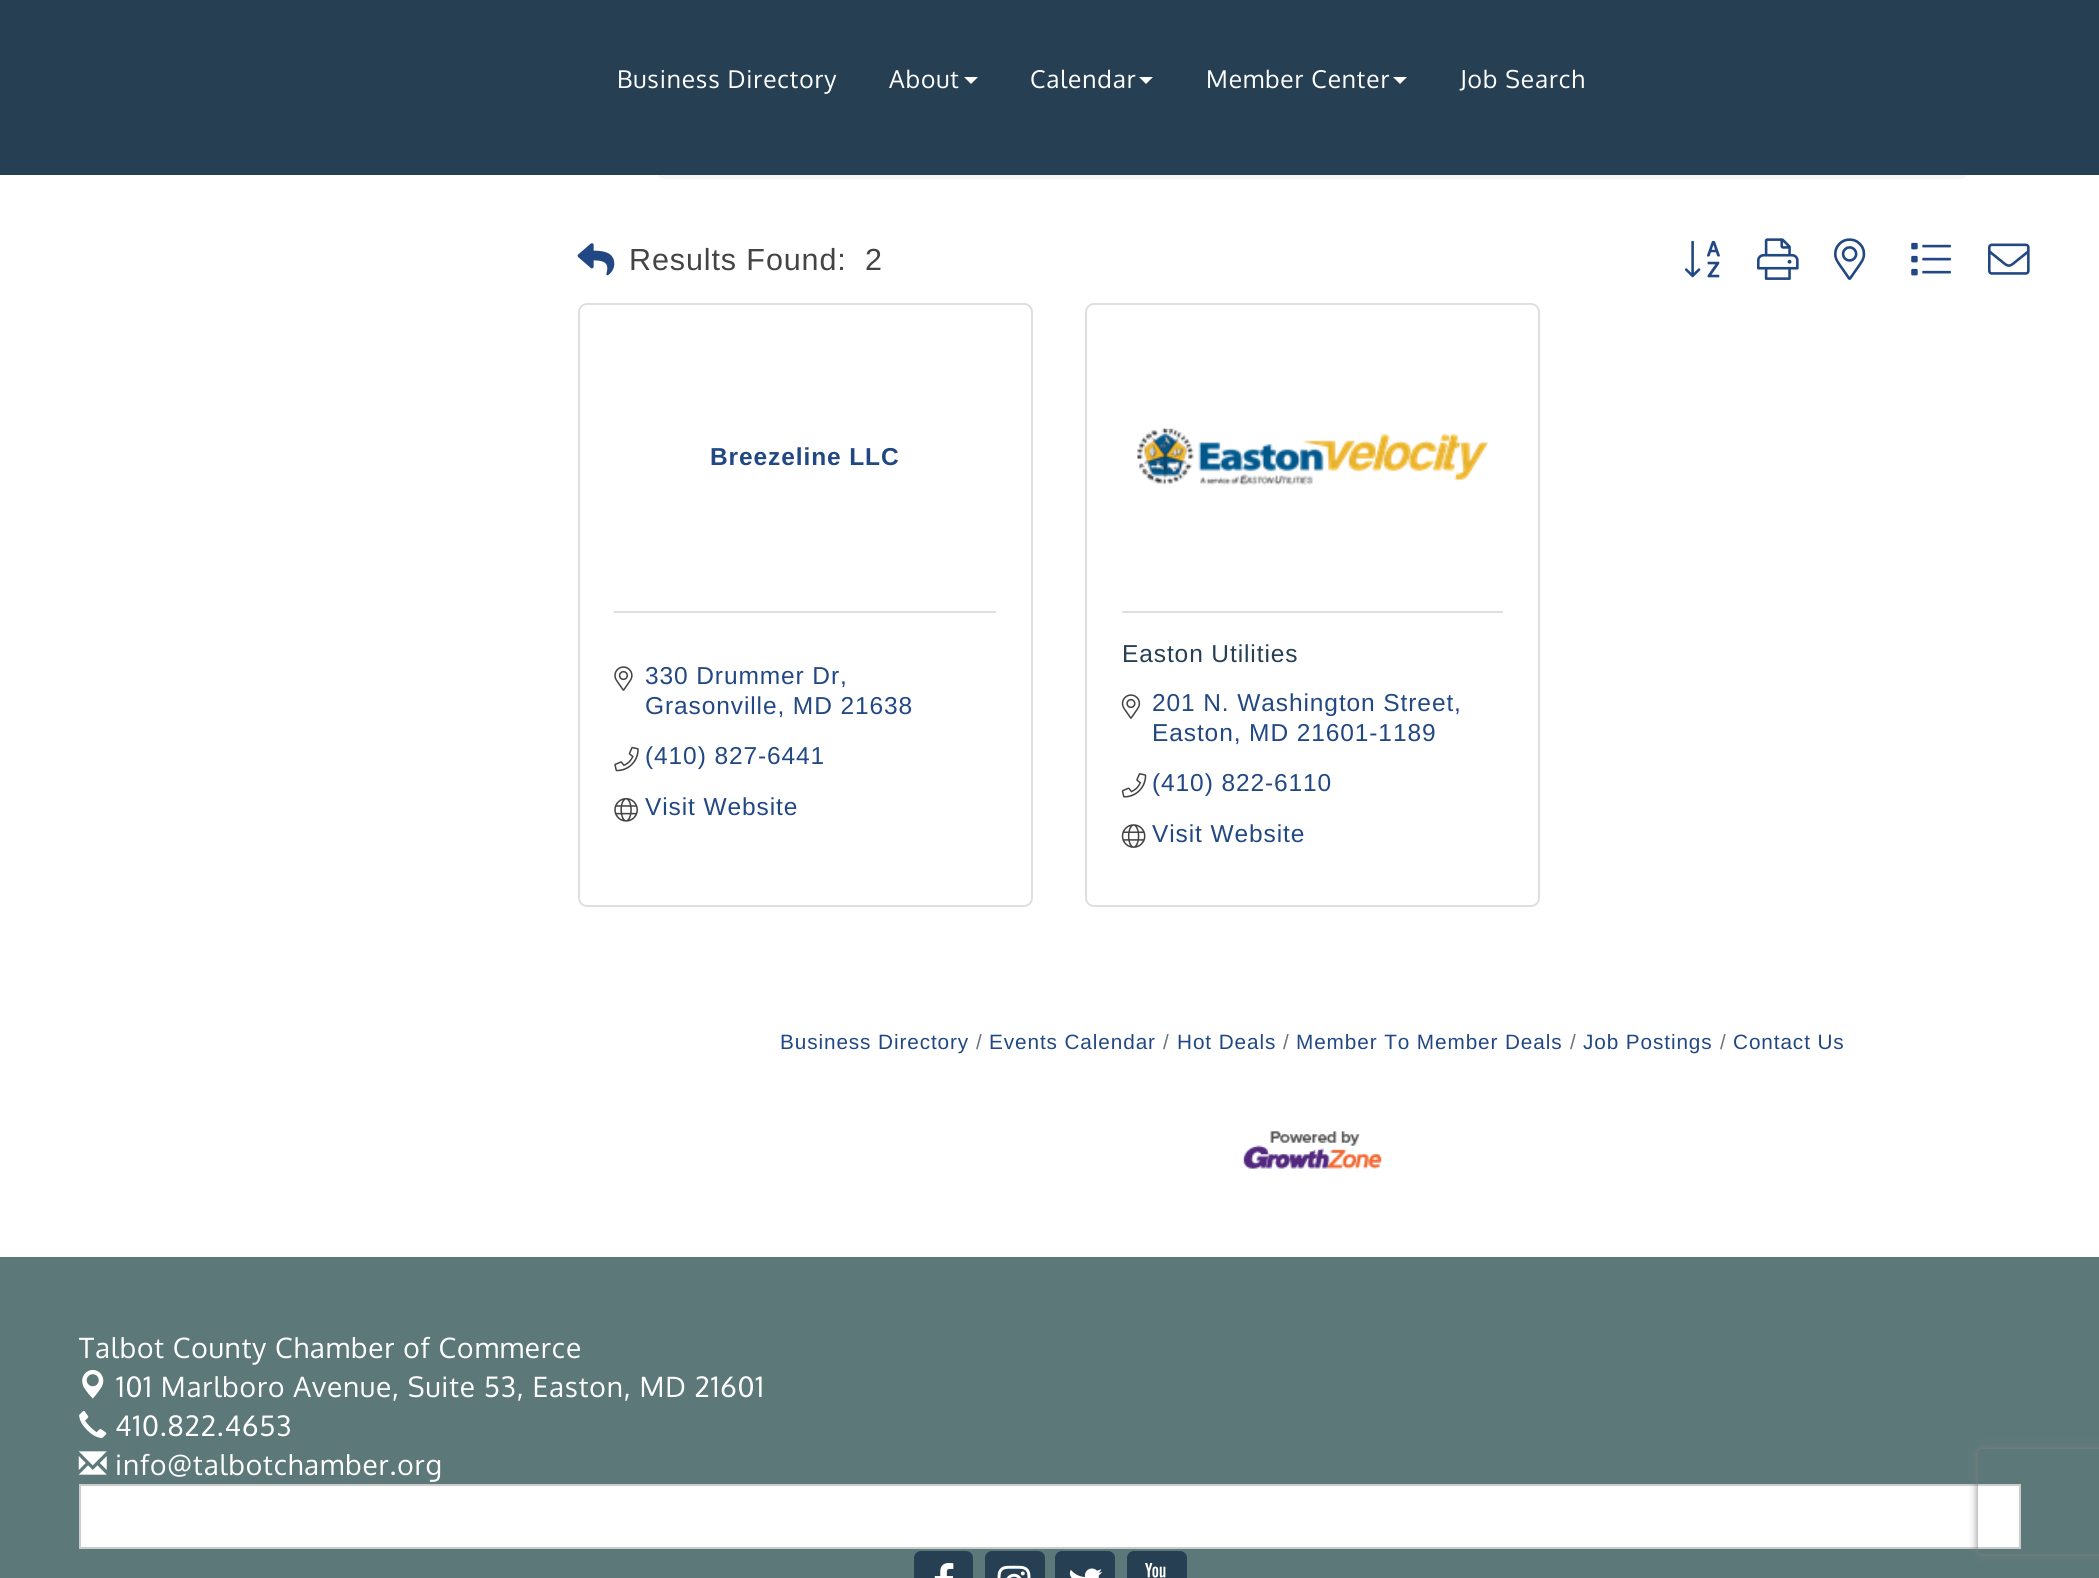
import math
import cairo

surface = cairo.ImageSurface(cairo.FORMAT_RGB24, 2099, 1578)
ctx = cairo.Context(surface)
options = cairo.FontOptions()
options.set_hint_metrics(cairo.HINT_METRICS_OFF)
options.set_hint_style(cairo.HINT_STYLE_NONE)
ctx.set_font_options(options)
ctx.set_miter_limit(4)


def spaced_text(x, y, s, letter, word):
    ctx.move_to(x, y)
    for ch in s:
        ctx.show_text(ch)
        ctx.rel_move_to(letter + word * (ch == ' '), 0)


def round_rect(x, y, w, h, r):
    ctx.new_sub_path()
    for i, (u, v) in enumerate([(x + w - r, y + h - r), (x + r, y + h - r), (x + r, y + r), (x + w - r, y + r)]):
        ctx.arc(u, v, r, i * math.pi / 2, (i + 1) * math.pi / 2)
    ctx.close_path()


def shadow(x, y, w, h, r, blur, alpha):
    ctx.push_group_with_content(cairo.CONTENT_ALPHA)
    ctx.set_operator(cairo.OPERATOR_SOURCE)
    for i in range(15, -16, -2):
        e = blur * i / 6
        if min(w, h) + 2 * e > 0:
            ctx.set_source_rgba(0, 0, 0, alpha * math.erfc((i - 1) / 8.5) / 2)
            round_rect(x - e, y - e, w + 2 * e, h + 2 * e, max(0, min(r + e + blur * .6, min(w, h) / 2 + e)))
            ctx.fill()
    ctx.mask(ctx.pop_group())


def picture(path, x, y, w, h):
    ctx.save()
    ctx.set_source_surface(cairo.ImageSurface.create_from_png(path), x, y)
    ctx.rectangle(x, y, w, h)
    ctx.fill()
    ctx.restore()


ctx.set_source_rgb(1, 1, 1)
ctx.paint()
ctx.set_source_rgb(0.961, 0.961, 0.961)
round_rect(656, 95, 1313, 84, 9)
ctx.fill()
ctx.set_source_rgb(0.149, 0.247, 0.325)
ctx.rectangle(0, 0, 2099, 175)
ctx.fill()
ctx.select_font_face("Oxygen")
ctx.set_font_size(24.5)
ctx.set_source_rgb(1, 1, 1)
spaced_text(617, 88, "Business Directory", 0.9, 0)
spaced_text(889, 88, "About", 0.9, 0)
ctx.new_path()
ctx.move_to(964, 77)
ctx.line_to(978, 77)
ctx.line_to(971, 84)
ctx.close_path()
ctx.fill()
spaced_text(1030, 88, "Calendar", 0.9, 0)
ctx.new_path()
ctx.move_to(1139, 77)
ctx.line_to(1153, 77)
ctx.line_to(1146, 84)
ctx.close_path()
ctx.fill()
spaced_text(1206, 88, "Member Center", 0.9, 0)
ctx.new_path()
ctx.move_to(1393, 77)
ctx.line_to(1407, 77)
ctx.line_to(1400, 84)
ctx.close_path()
ctx.fill()
spaced_text(1460, 88, "Job Search", 0.9, 0)
picture("img1.png", 577, 243, 38, 33)
ctx.select_font_face("Liberation Sans")
ctx.set_font_size(30.5)
ctx.set_source_rgb(0.267, 0.267, 0.267)
spaced_text(629, 270, "Results Found:", 0.9, 0)
spaced_text(865, 270, "2", 0.9, 0)
picture("img2.png", 1684, 240, 36, 38)
picture("img3.png", 1757, 238, 42, 42)
picture("img4.png", 1834, 238, 32, 42)
picture("img5.png", 1911, 242, 40, 34)
picture("img6.png", 1988, 243, 42, 32)
round_rect(579, 304, 453, 602, 8)
ctx.set_source_rgb(0.875, 0.875, 0.875)
ctx.stroke()
ctx.select_font_face("Liberation Sans", cairo.FONT_SLANT_NORMAL, cairo.FONT_WEIGHT_BOLD)
ctx.set_font_size(24.5)
ctx.set_source_rgb(0.133, 0.282, 0.518)
spaced_text(710, 465, "Breezeline LLC", 0.9, 0)
ctx.set_source_rgb(0.875, 0.875, 0.875)
ctx.rectangle(614, 611, 382, 2)
ctx.fill()
picture("img7.png", 614, 666, 19, 25)
ctx.select_font_face("Liberation Sans")
ctx.set_source_rgb(0.133, 0.282, 0.518)
spaced_text(645, 684, "330 Drummer Dr,", 0.9, 0)
spaced_text(645, 714, "Grasonville, MD 21638", 0.9, 0)
picture("img8.png", 614, 746, 25, 26)
spaced_text(645, 764, "(410) 827-6441", 0.9, 0)
picture("img9.png", 614, 797, 24, 25)
spaced_text(645, 815, "Visit Website", 0.9, 0)
round_rect(1086, 304, 453, 602, 8)
ctx.set_source_rgb(0.875, 0.875, 0.875)
ctx.stroke()
picture("img10.png", 1137, 428, 351, 58)
ctx.rectangle(1122, 611, 381, 2)
ctx.fill()
ctx.set_source_rgb(0.149, 0.247, 0.325)
spaced_text(1122, 662, "Easton Utilities", 0.9, 0)
picture("img11.png", 1121, 694, 20, 25)
ctx.set_source_rgb(0.133, 0.282, 0.518)
spaced_text(1152, 711, "201 N. Washington Street,", 0.9, 0)
spaced_text(1152, 741, "Easton, MD 21601-1189", 0.9, 0)
picture("img12.png", 1121, 773, 26, 25)
spaced_text(1152, 791, "(410) 822-6110", 0.9, 0)
picture("img13.png", 1121, 824, 25, 24)
spaced_text(1152, 842, "Visit Website", 0.9, 0)
ctx.set_font_size(20.75)
spaced_text(780, 1049, "Business Directory", 0.9, 0)
ctx.set_source_rgb(0.424, 0.459, 0.49)
spaced_text(976, 1049, "/", 0.9, 0)
ctx.set_source_rgb(0.133, 0.282, 0.518)
spaced_text(989, 1049, "Events Calendar", 0.9, 0)
ctx.set_source_rgb(0.424, 0.459, 0.49)
spaced_text(1163, 1049, "/", 0.9, 0)
ctx.set_source_rgb(0.133, 0.282, 0.518)
spaced_text(1177, 1049, "Hot Deals", 0.9, 0)
ctx.set_source_rgb(0.424, 0.459, 0.49)
spaced_text(1283, 1049, "/", 0.9, 0)
ctx.set_source_rgb(0.133, 0.282, 0.518)
spaced_text(1296, 1049, "Member To Member Deals", 0.9, 0)
ctx.set_source_rgb(0.424, 0.459, 0.49)
spaced_text(1570, 1049, "/", 0.9, 0)
ctx.set_source_rgb(0.133, 0.282, 0.518)
spaced_text(1583, 1049, "Job Postings", 0.9, 0)
ctx.set_source_rgb(0.424, 0.459, 0.49)
spaced_text(1720, 1049, "/", 0.9, 0)
ctx.set_source_rgb(0.133, 0.282, 0.518)
spaced_text(1733, 1049, "Contact Us", 0.9, 0)
picture("img14.png", 1243, 1131, 139, 38)
ctx.set_source_rgb(0.361, 0.471, 0.475)
ctx.rectangle(0, 1257, 2099, 321)
ctx.fill()
ctx.select_font_face("Oxygen")
ctx.set_font_size(28)
ctx.set_source_rgb(1, 1, 1)
spaced_text(79, 1358, "Talbot County Chamber of Commerce", 0.9, 0)
picture("img15.png", 82, 1369, 22, 30)
spaced_text(116, 1397, "101 Marlboro Avenue, Suite 53, Easton, MD 21601", 0.9, 0)
picture("img16.png", 79, 1410, 28, 29)
spaced_text(115, 1436, "410.822.4653", 0.9, 0)
picture("img17.png", 78, 1451, 29, 24)
spaced_text(115, 1475, "info@talbotchamber.org", 0.9, 0)
ctx.rectangle(80, 1485, 1940, 63)
ctx.fill_preserve()
ctx.set_source_rgb(0.8, 0.8, 0.8)
ctx.stroke()
ctx.set_source_rgb(0.149, 0.247, 0.325)
round_rect(915, 1552, 57, 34, 6)
ctx.fill_preserve()
ctx.stroke()
picture("img18.png", 934, 1563, 20, 15)
round_rect(986, 1552, 58, 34, 6)
ctx.fill_preserve()
ctx.stroke()
picture("img19.png", 997, 1565, 34, 13)
round_rect(1056, 1552, 58, 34, 6)
ctx.fill_preserve()
ctx.stroke()
picture("img20.png", 1069, 1568, 34, 10)
round_rect(1128, 1552, 58, 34, 6)
ctx.fill_preserve()
ctx.stroke()
picture("img21.png", 1145, 1563, 21, 15)
ctx.save()
ctx.set_fill_rule(cairo.FILL_RULE_EVEN_ODD)
ctx.new_path()
ctx.move_to(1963, 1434)
ctx.line_to(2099, 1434)
ctx.line_to(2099, 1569)
ctx.line_to(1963, 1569)
ctx.close_path()
ctx.move_to(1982, 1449)
ctx.line_to(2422, 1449)
ctx.curve_to(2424, 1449, 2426, 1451, 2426, 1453)
ctx.line_to(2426, 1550)
ctx.curve_to(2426, 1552, 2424, 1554, 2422, 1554)
ctx.line_to(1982, 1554)
ctx.curve_to(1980, 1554, 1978, 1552, 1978, 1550)
ctx.line_to(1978, 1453)
ctx.curve_to(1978, 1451, 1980, 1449, 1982, 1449)
ctx.close_path()
ctx.clip()
ctx.set_source_rgb(0.502, 0.502, 0.502)
shadow(1978, 1449, 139, 105, 4, 4.5, 1)
ctx.restore()
surface.write_to_png("page.png")
